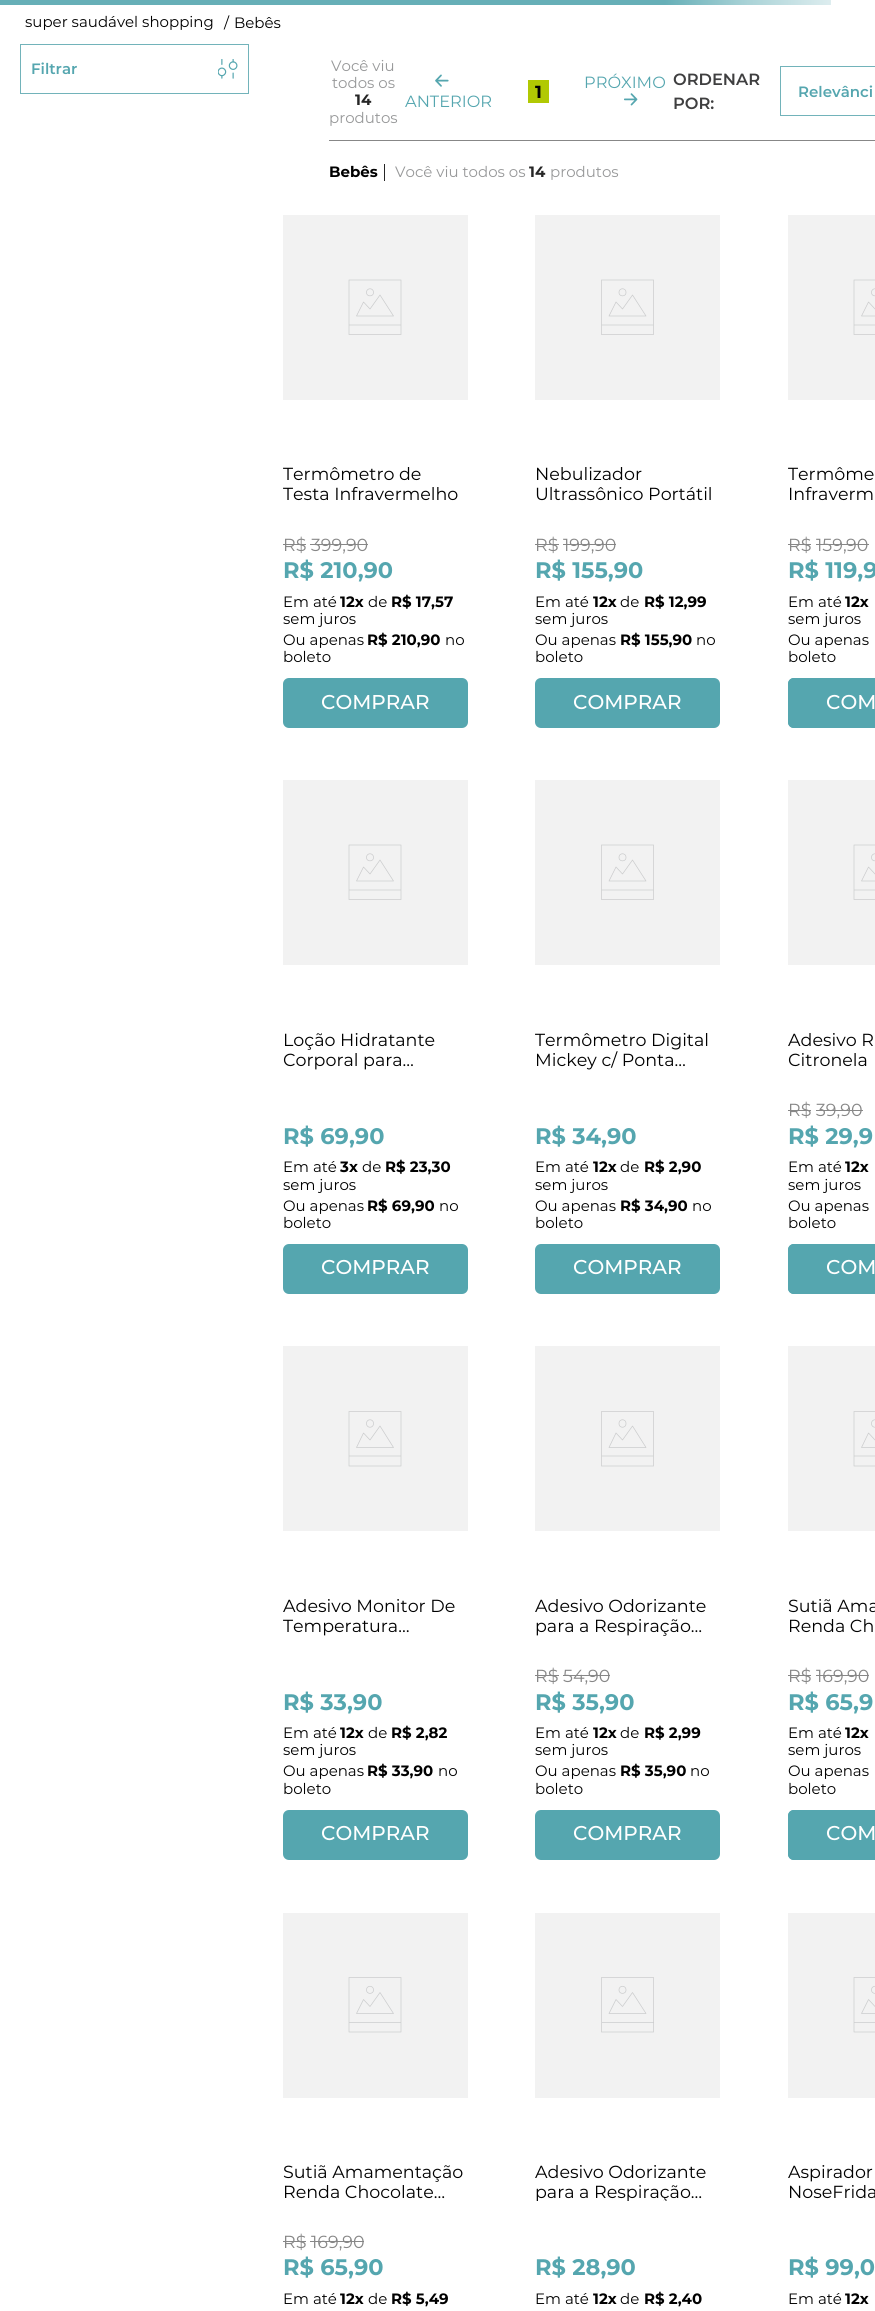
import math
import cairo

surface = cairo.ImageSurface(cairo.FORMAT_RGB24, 875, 2311)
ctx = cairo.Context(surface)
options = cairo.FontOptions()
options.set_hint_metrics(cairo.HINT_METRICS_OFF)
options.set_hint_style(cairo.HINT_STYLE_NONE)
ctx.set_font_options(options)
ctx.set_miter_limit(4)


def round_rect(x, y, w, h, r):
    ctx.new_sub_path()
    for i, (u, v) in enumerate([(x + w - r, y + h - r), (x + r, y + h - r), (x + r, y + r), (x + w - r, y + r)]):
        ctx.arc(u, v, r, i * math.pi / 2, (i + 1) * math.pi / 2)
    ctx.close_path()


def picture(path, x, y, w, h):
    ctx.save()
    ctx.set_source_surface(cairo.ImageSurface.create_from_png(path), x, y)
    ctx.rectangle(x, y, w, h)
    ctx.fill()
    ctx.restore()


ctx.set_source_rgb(1, 1, 1)
ctx.paint()
gradient = cairo.LinearGradient(0, 2.5, 831, 2.5)
gradient.add_color_stop_rgba(0.8, 0.4, 0.686, 0.718, 1)
gradient.add_color_stop_rgba(0.9, 0.667, 0.827, 0.843, 1)
gradient.add_color_stop_rgba(1, 0.867, 0.929, 0.937, 1)
ctx.set_source(gradient)
ctx.rectangle(0, 0, 831, 5)
ctx.fill()
ctx.select_font_face("Montserrat")
ctx.set_font_size(15)
ctx.set_source_rgb(0, 0, 0)
ctx.move_to(25, 27)
ctx.show_text("super saudável shopping")
ctx.move_to(224, 28)
ctx.show_text("/")
ctx.move_to(234, 28)
ctx.show_text("Bebês")
ctx.rectangle(20.5, 44.5, 228, 49)
ctx.set_source_rgb(0.447, 0.702, 0.729)
ctx.set_line_width(1)
ctx.stroke()
ctx.select_font_face("Montserrat SemiBold")
ctx.set_source_rgb(0.333, 0.651, 0.686)
ctx.move_to(31, 74)
ctx.show_text("Filtrar")
picture("img1.png", 218, 59, 20, 20)
ctx.set_source_rgb(0.529, 0.529, 0.529)
ctx.rectangle(329, 140, 546, 1)
ctx.fill()
ctx.select_font_face("Montserrat")
ctx.set_source_rgb(0.592, 0.596, 0.6)
ctx.move_to(331, 71)
ctx.show_text("Você viu")
ctx.move_to(332, 88)
ctx.show_text("todos os")
ctx.select_font_face("Montserrat", cairo.FONT_SLANT_NORMAL, cairo.FONT_WEIGHT_BOLD)
ctx.set_source_rgb(0.149, 0.149, 0.149)
ctx.move_to(355, 105)
ctx.show_text("14")
ctx.select_font_face("Montserrat")
ctx.set_source_rgb(0.592, 0.596, 0.6)
ctx.move_to(329, 123)
ctx.show_text("produtos")
ctx.set_font_size(16.25)
ctx.set_source_rgb(0.333, 0.651, 0.686)
ctx.move_to(584, 88)
ctx.show_text("PRÓXIMO")
picture("img2.png", 624, 93, 14, 13)
ctx.set_source_rgb(0.694, 0.788, 0.012)
ctx.rectangle(528, 80, 21, 23)
ctx.fill()
ctx.select_font_face("Montserrat", cairo.FONT_SLANT_NORMAL, cairo.FONT_WEIGHT_BOLD)
ctx.set_font_size(17.5)
ctx.set_source_rgb(0, 0, 0)
ctx.move_to(535, 98)
ctx.show_text("1")
picture("img3.png", 435, 74, 14, 13)
ctx.select_font_face("Montserrat")
ctx.set_font_size(16.25)
ctx.set_source_rgb(0.333, 0.651, 0.686)
ctx.move_to(405, 107)
ctx.show_text("ANTERIOR")
ctx.select_font_face("Montserrat SemiBold")
ctx.set_source_rgb(0.247, 0.247, 0.251)
ctx.move_to(673, 85)
ctx.show_text("ORDENAR")
ctx.move_to(673, 109)
ctx.show_text("POR:")
ctx.rectangle(780.5, 66.5, 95, 49)
ctx.set_source_rgb(0.447, 0.702, 0.729)
ctx.stroke()
ctx.set_font_size(15)
ctx.set_source_rgb(0.333, 0.651, 0.686)
ctx.move_to(798, 97)
ctx.show_text("Relevânci")
ctx.set_source_rgb(0.149, 0.149, 0.149)
ctx.rectangle(384, 164, 1, 17)
ctx.fill()
ctx.select_font_face("Montserrat", cairo.FONT_SLANT_NORMAL, cairo.FONT_WEIGHT_BOLD)
ctx.set_source_rgb(0, 0, 0)
ctx.move_to(329, 177)
ctx.show_text("Bebês")
ctx.select_font_face("Montserrat")
ctx.set_source_rgb(0.592, 0.596, 0.6)
ctx.move_to(395, 177)
ctx.show_text("Você viu todos os")
ctx.select_font_face("Montserrat", cairo.FONT_SLANT_NORMAL, cairo.FONT_WEIGHT_BOLD)
ctx.set_source_rgb(0.149, 0.149, 0.149)
ctx.move_to(529, 177)
ctx.show_text("14")
ctx.select_font_face("Montserrat")
ctx.set_source_rgb(0.592, 0.596, 0.6)
ctx.move_to(550, 177)
ctx.show_text("produtos")
ctx.set_source_rgb(0.949, 0.949, 0.949)
ctx.rectangle(283, 215, 185, 185)
ctx.fill()
ctx.new_path()
ctx.move_to(349, 280)
ctx.line_to(401, 280)
ctx.line_to(401, 334.5)
ctx.line_to(349, 334.5)
ctx.close_path()
ctx.move_to(349, 325)
ctx.line_to(401, 325)
ctx.set_source_rgb(0.792, 0.796, 0.8)
ctx.set_line_width(0.7)
ctx.stroke()
ctx.new_path()
ctx.move_to(356.5, 316)
ctx.line_to(363.5, 302)
ctx.line_to(370, 309)
ctx.line_to(380, 295)
ctx.line_to(393.5, 316)
ctx.close_path()
ctx.set_line_cap(cairo.LINE_CAP_ROUND)
ctx.set_line_join(cairo.LINE_JOIN_ROUND)
ctx.stroke()
ctx.new_path()
ctx.move_to(373.5, 292.5)
ctx.curve_to(373.5, 297, 366.5, 297, 366.5, 292.5)
ctx.curve_to(366.5, 287.5, 373.5, 287.5, 373.5, 292.5)
ctx.close_path()
ctx.set_line_cap(cairo.LINE_CAP_BUTT)
ctx.set_line_join(cairo.LINE_JOIN_MITER)
ctx.stroke()
ctx.set_font_size(17.5)
ctx.set_source_rgb(0, 0, 0)
ctx.move_to(283, 480)
ctx.show_text("Termômetro de")
ctx.move_to(283, 500)
ctx.show_text("Testa Infravermelho")
ctx.set_source_rgb(0.529, 0.529, 0.529)
ctx.move_to(283, 551)
ctx.show_text("R$ 399,90")
ctx.rectangle(283, 544, 23, 1)
ctx.fill()
ctx.rectangle(310, 544, 58, 1)
ctx.fill()
ctx.select_font_face("Montserrat", cairo.FONT_SLANT_NORMAL, cairo.FONT_WEIGHT_BOLD)
ctx.set_font_size(22.5)
ctx.set_source_rgb(0.333, 0.651, 0.686)
ctx.move_to(283, 578)
ctx.show_text("R$ 210,90")
ctx.select_font_face("Montserrat")
ctx.set_font_size(15)
ctx.set_source_rgb(0, 0, 0)
ctx.move_to(283, 607)
ctx.show_text("Em até")
ctx.select_font_face("Montserrat", cairo.FONT_SLANT_NORMAL, cairo.FONT_WEIGHT_BOLD)
ctx.move_to(340, 607)
ctx.show_text("12x")
ctx.select_font_face("Montserrat")
ctx.move_to(368, 607)
ctx.show_text("de")
ctx.select_font_face("Montserrat", cairo.FONT_SLANT_NORMAL, cairo.FONT_WEIGHT_BOLD)
ctx.move_to(391, 607)
ctx.show_text("R$ 17,57")
ctx.select_font_face("Montserrat")
ctx.move_to(283, 624)
ctx.show_text("sem juros")
ctx.move_to(283, 645)
ctx.show_text("Ou apenas")
ctx.select_font_face("Montserrat", cairo.FONT_SLANT_NORMAL, cairo.FONT_WEIGHT_BOLD)
ctx.move_to(367, 645)
ctx.show_text("R$ 210,90")
ctx.select_font_face("Montserrat")
ctx.move_to(445, 645)
ctx.show_text("no")
ctx.move_to(283, 662)
ctx.show_text("boleto")
ctx.set_source_rgb(0.333, 0.651, 0.686)
round_rect(284.5, 679.5, 182, 47, 4.5)
ctx.fill_preserve()
ctx.set_line_width(3)
ctx.stroke()
ctx.select_font_face("Montserrat Medium")
ctx.set_font_size(20)
ctx.set_source_rgb(1, 1, 1)
ctx.move_to(321, 709)
ctx.show_text("COMPRAR")
ctx.set_source_rgb(0.949, 0.949, 0.949)
ctx.rectangle(535, 215, 185, 185)
ctx.fill()
ctx.new_path()
ctx.move_to(601.5, 280)
ctx.line_to(653.5, 280)
ctx.line_to(653.5, 334.5)
ctx.line_to(601.5, 334.5)
ctx.close_path()
ctx.move_to(601.5, 325)
ctx.line_to(653.5, 325)
ctx.set_source_rgb(0.792, 0.796, 0.8)
ctx.set_line_width(0.7)
ctx.stroke()
ctx.new_path()
ctx.move_to(609, 316)
ctx.line_to(616, 302)
ctx.line_to(622.5, 309)
ctx.line_to(632.5, 295)
ctx.line_to(646, 316)
ctx.close_path()
ctx.set_line_cap(cairo.LINE_CAP_ROUND)
ctx.set_line_join(cairo.LINE_JOIN_ROUND)
ctx.stroke()
ctx.new_path()
ctx.move_to(626, 292.5)
ctx.curve_to(626, 297, 619, 297, 619, 292.5)
ctx.curve_to(619, 287.5, 626, 287.5, 626, 292.5)
ctx.close_path()
ctx.set_line_cap(cairo.LINE_CAP_BUTT)
ctx.set_line_join(cairo.LINE_JOIN_MITER)
ctx.stroke()
ctx.select_font_face("Montserrat")
ctx.set_font_size(17.5)
ctx.set_source_rgb(0, 0, 0)
ctx.move_to(535, 480)
ctx.show_text("Nebulizador")
ctx.move_to(535, 500)
ctx.show_text("Ultrassônico Portátil")
ctx.set_source_rgb(0.529, 0.529, 0.529)
ctx.move_to(535, 551)
ctx.show_text("R$ 199,")
ctx.rectangle(535, 544, 24, 1)
ctx.fill()
ctx.rectangle(563, 544, 32, 1)
ctx.fill()
ctx.move_to(594, 551)
ctx.show_text("90")
ctx.rectangle(595, 544, 21, 1)
ctx.fill()
ctx.select_font_face("Montserrat", cairo.FONT_SLANT_NORMAL, cairo.FONT_WEIGHT_BOLD)
ctx.set_font_size(22.5)
ctx.set_source_rgb(0.333, 0.651, 0.686)
ctx.move_to(535, 578)
ctx.show_text("R$ 155,90")
ctx.select_font_face("Montserrat")
ctx.set_font_size(15)
ctx.set_source_rgb(0, 0, 0)
ctx.move_to(535, 607)
ctx.show_text("Em até")
ctx.select_font_face("Montserrat", cairo.FONT_SLANT_NORMAL, cairo.FONT_WEIGHT_BOLD)
ctx.move_to(593, 607)
ctx.show_text("12x")
ctx.select_font_face("Montserrat")
ctx.move_to(620, 607)
ctx.show_text("de")
ctx.select_font_face("Montserrat", cairo.FONT_SLANT_NORMAL, cairo.FONT_WEIGHT_BOLD)
ctx.move_to(644, 607)
ctx.show_text("R$ 12,99")
ctx.select_font_face("Montserrat")
ctx.move_to(535, 624)
ctx.show_text("sem juros")
ctx.move_to(535, 645)
ctx.show_text("Ou apenas")
ctx.select_font_face("Montserrat", cairo.FONT_SLANT_NORMAL, cairo.FONT_WEIGHT_BOLD)
ctx.move_to(620, 645)
ctx.show_text("R$ 155,90")
ctx.select_font_face("Montserrat")
ctx.move_to(696, 645)
ctx.show_text("no")
ctx.move_to(535, 662)
ctx.show_text("boleto")
ctx.set_source_rgb(0.333, 0.651, 0.686)
round_rect(536.5, 679.5, 182, 47, 4.5)
ctx.fill_preserve()
ctx.set_line_width(3)
ctx.stroke()
ctx.select_font_face("Montserrat Medium")
ctx.set_font_size(20)
ctx.set_source_rgb(1, 1, 1)
ctx.move_to(573, 709)
ctx.show_text("COMPRAR")
ctx.set_source_rgb(0.949, 0.949, 0.949)
ctx.rectangle(788, 215, 87, 185)
ctx.fill()
ctx.new_path()
ctx.move_to(854, 280)
ctx.line_to(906, 280)
ctx.line_to(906, 334.5)
ctx.line_to(854, 334.5)
ctx.close_path()
ctx.move_to(854, 325)
ctx.line_to(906, 325)
ctx.set_source_rgb(0.792, 0.796, 0.8)
ctx.set_line_width(0.7)
ctx.stroke()
ctx.new_path()
ctx.move_to(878.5, 292.5)
ctx.curve_to(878.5, 297, 871.5, 297, 871.5, 292.5)
ctx.curve_to(871.5, 287.5, 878.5, 287.5, 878.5, 292.5)
ctx.close_path()
ctx.stroke()
ctx.new_path()
ctx.move_to(861.5, 316)
ctx.line_to(868.5, 302)
ctx.line_to(875, 309)
ctx.line_to(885, 295)
ctx.line_to(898.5, 316)
ctx.close_path()
ctx.set_line_cap(cairo.LINE_CAP_ROUND)
ctx.set_line_join(cairo.LINE_JOIN_ROUND)
ctx.stroke()
ctx.select_font_face("Montserrat")
ctx.set_font_size(17.5)
ctx.set_source_rgb(0, 0, 0)
ctx.move_to(788, 480)
ctx.show_text("Termôme")
ctx.move_to(788, 500)
ctx.show_text("Infraverm")
ctx.set_source_rgb(0.529, 0.529, 0.529)
ctx.move_to(788, 551)
ctx.show_text("R$ 159,")
ctx.rectangle(788, 544, 23, 1)
ctx.fill()
ctx.rectangle(816, 544, 31, 1)
ctx.fill()
ctx.rectangle(846, 544, 23, 1)
ctx.fill()
ctx.move_to(846, 551)
ctx.show_text("90")
ctx.select_font_face("Montserrat", cairo.FONT_SLANT_NORMAL, cairo.FONT_WEIGHT_BOLD)
ctx.set_font_size(22.5)
ctx.set_source_rgb(0.333, 0.651, 0.686)
ctx.move_to(788, 578)
ctx.show_text("R$ 119,9")
ctx.select_font_face("Montserrat")
ctx.set_font_size(15)
ctx.set_source_rgb(0, 0, 0)
ctx.move_to(788, 607)
ctx.show_text("Em até")
ctx.select_font_face("Montserrat", cairo.FONT_SLANT_NORMAL, cairo.FONT_WEIGHT_BOLD)
ctx.move_to(845, 607)
ctx.show_text("12x")
ctx.select_font_face("Montserrat")
ctx.move_to(788, 624)
ctx.show_text("sem juros")
ctx.move_to(788, 645)
ctx.show_text("Ou apenas")
ctx.move_to(788, 662)
ctx.show_text("boleto")
ctx.set_source_rgb(0.333, 0.651, 0.686)
ctx.new_path()
ctx.move_to(794, 678)
ctx.line_to(875, 678)
ctx.line_to(875, 728)
ctx.line_to(794, 728)
ctx.curve_to(790.5, 728, 788, 725.5, 788, 722)
ctx.line_to(788, 684)
ctx.curve_to(788, 680.5, 790.5, 678, 794, 678)
ctx.close_path()
ctx.fill()
round_rect(789.5, 679.5, 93, 47, 4.5)
ctx.set_line_width(3)
ctx.set_line_cap(cairo.LINE_CAP_BUTT)
ctx.set_line_join(cairo.LINE_JOIN_MITER)
ctx.stroke()
ctx.select_font_face("Montserrat Medium")
ctx.set_font_size(20)
ctx.set_source_rgb(1, 1, 1)
ctx.move_to(826, 709)
ctx.show_text("COM")
ctx.set_source_rgb(0.949, 0.949, 0.949)
ctx.rectangle(283, 780, 185, 185)
ctx.fill()
ctx.new_path()
ctx.move_to(349, 845)
ctx.line_to(401, 845)
ctx.line_to(401, 899.5)
ctx.line_to(349, 899.5)
ctx.close_path()
ctx.move_to(349, 890)
ctx.line_to(401, 890)
ctx.set_source_rgb(0.792, 0.796, 0.8)
ctx.set_line_width(0.7)
ctx.stroke()
ctx.new_path()
ctx.move_to(356.5, 881)
ctx.line_to(363.5, 867)
ctx.line_to(370, 874)
ctx.line_to(380, 860)
ctx.line_to(393.5, 881)
ctx.close_path()
ctx.set_line_cap(cairo.LINE_CAP_ROUND)
ctx.set_line_join(cairo.LINE_JOIN_ROUND)
ctx.stroke()
ctx.new_path()
ctx.move_to(373.5, 857.5)
ctx.curve_to(373.5, 862, 366.5, 862, 366.5, 857.5)
ctx.curve_to(366.5, 852.5, 373.5, 852.5, 373.5, 857.5)
ctx.close_path()
ctx.set_line_cap(cairo.LINE_CAP_BUTT)
ctx.set_line_join(cairo.LINE_JOIN_MITER)
ctx.stroke()
ctx.select_font_face("Montserrat")
ctx.set_font_size(17.5)
ctx.set_source_rgb(0, 0, 0)
ctx.move_to(283, 1046)
ctx.show_text("Loção Hidratante")
ctx.move_to(283, 1066)
ctx.show_text("Corporal para…")
ctx.select_font_face("Montserrat", cairo.FONT_SLANT_NORMAL, cairo.FONT_WEIGHT_BOLD)
ctx.set_font_size(22.5)
ctx.set_source_rgb(0.333, 0.651, 0.686)
ctx.move_to(283, 1144)
ctx.show_text("R$ 69,90")
ctx.select_font_face("Montserrat")
ctx.set_font_size(15)
ctx.set_source_rgb(0, 0, 0)
ctx.move_to(283, 1172)
ctx.show_text("Em até")
ctx.select_font_face("Montserrat", cairo.FONT_SLANT_NORMAL, cairo.FONT_WEIGHT_BOLD)
ctx.move_to(340, 1172)
ctx.show_text("3x")
ctx.select_font_face("Montserrat")
ctx.move_to(362, 1172)
ctx.show_text("de")
ctx.select_font_face("Montserrat", cairo.FONT_SLANT_NORMAL, cairo.FONT_WEIGHT_BOLD)
ctx.move_to(385, 1172)
ctx.show_text("R$ 23,30")
ctx.select_font_face("Montserrat")
ctx.move_to(283, 1190)
ctx.show_text("sem juros")
ctx.move_to(283, 1211)
ctx.show_text("Ou apenas")
ctx.select_font_face("Montserrat", cairo.FONT_SLANT_NORMAL, cairo.FONT_WEIGHT_BOLD)
ctx.move_to(367, 1211)
ctx.show_text("R$ 69,90")
ctx.select_font_face("Montserrat")
ctx.move_to(439, 1211)
ctx.show_text("no")
ctx.move_to(283, 1228)
ctx.show_text("boleto")
ctx.set_source_rgb(0.333, 0.651, 0.686)
round_rect(284.5, 1245.5, 182, 47, 4.5)
ctx.fill_preserve()
ctx.set_line_width(3)
ctx.stroke()
ctx.select_font_face("Montserrat Medium")
ctx.set_font_size(20)
ctx.set_source_rgb(1, 1, 1)
ctx.move_to(321, 1274)
ctx.show_text("COMPRAR")
ctx.set_source_rgb(0.949, 0.949, 0.949)
ctx.rectangle(535, 780, 185, 185)
ctx.fill()
ctx.new_path()
ctx.move_to(601.5, 845)
ctx.line_to(653.5, 845)
ctx.line_to(653.5, 899.5)
ctx.line_to(601.5, 899.5)
ctx.close_path()
ctx.move_to(601.5, 890)
ctx.line_to(653.5, 890)
ctx.set_source_rgb(0.792, 0.796, 0.8)
ctx.set_line_width(0.7)
ctx.stroke()
ctx.new_path()
ctx.move_to(609, 881)
ctx.line_to(616, 867)
ctx.line_to(622.5, 874)
ctx.line_to(632.5, 860)
ctx.line_to(646, 881)
ctx.close_path()
ctx.set_line_cap(cairo.LINE_CAP_ROUND)
ctx.set_line_join(cairo.LINE_JOIN_ROUND)
ctx.stroke()
ctx.new_path()
ctx.move_to(626, 857.5)
ctx.curve_to(626, 862, 619, 862, 619, 857.5)
ctx.curve_to(619, 852.5, 626, 852.5, 626, 857.5)
ctx.close_path()
ctx.set_line_cap(cairo.LINE_CAP_BUTT)
ctx.set_line_join(cairo.LINE_JOIN_MITER)
ctx.stroke()
ctx.select_font_face("Montserrat")
ctx.set_font_size(17.5)
ctx.set_source_rgb(0, 0, 0)
ctx.move_to(535, 1046)
ctx.show_text("Termômetro Digital")
ctx.move_to(535, 1066)
ctx.show_text("Mickey c/ Ponta…")
ctx.select_font_face("Montserrat", cairo.FONT_SLANT_NORMAL, cairo.FONT_WEIGHT_BOLD)
ctx.set_font_size(22.5)
ctx.set_source_rgb(0.333, 0.651, 0.686)
ctx.move_to(535, 1144)
ctx.show_text("R$ 34,90")
ctx.select_font_face("Montserrat")
ctx.set_font_size(15)
ctx.set_source_rgb(0, 0, 0)
ctx.move_to(535, 1172)
ctx.show_text("Em até")
ctx.select_font_face("Montserrat", cairo.FONT_SLANT_NORMAL, cairo.FONT_WEIGHT_BOLD)
ctx.move_to(593, 1172)
ctx.show_text("12x")
ctx.select_font_face("Montserrat")
ctx.move_to(620, 1172)
ctx.show_text("de")
ctx.select_font_face("Montserrat", cairo.FONT_SLANT_NORMAL, cairo.FONT_WEIGHT_BOLD)
ctx.move_to(644, 1172)
ctx.show_text("R$ 2,90")
ctx.select_font_face("Montserrat")
ctx.move_to(535, 1190)
ctx.show_text("sem juros")
ctx.move_to(535, 1211)
ctx.show_text("Ou apenas")
ctx.select_font_face("Montserrat", cairo.FONT_SLANT_NORMAL, cairo.FONT_WEIGHT_BOLD)
ctx.move_to(620, 1211)
ctx.show_text("R$ 34,90")
ctx.select_font_face("Montserrat")
ctx.move_to(692, 1211)
ctx.show_text("no")
ctx.move_to(535, 1228)
ctx.show_text("boleto")
ctx.set_source_rgb(0.333, 0.651, 0.686)
round_rect(536.5, 1245.5, 182, 47, 4.5)
ctx.fill_preserve()
ctx.set_line_width(3)
ctx.stroke()
ctx.select_font_face("Montserrat Medium")
ctx.set_font_size(20)
ctx.set_source_rgb(1, 1, 1)
ctx.move_to(573, 1274)
ctx.show_text("COMPRAR")
ctx.set_source_rgb(0.949, 0.949, 0.949)
ctx.rectangle(788, 780, 87, 185)
ctx.fill()
ctx.new_path()
ctx.move_to(854, 845)
ctx.line_to(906, 845)
ctx.line_to(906, 899.5)
ctx.line_to(854, 899.5)
ctx.close_path()
ctx.move_to(854, 890)
ctx.line_to(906, 890)
ctx.set_source_rgb(0.792, 0.796, 0.8)
ctx.set_line_width(0.7)
ctx.stroke()
ctx.new_path()
ctx.move_to(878.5, 857.5)
ctx.curve_to(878.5, 862, 871.5, 862, 871.5, 857.5)
ctx.curve_to(871.5, 852.5, 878.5, 852.5, 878.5, 857.5)
ctx.close_path()
ctx.stroke()
ctx.new_path()
ctx.move_to(861.5, 881)
ctx.line_to(868.5, 867)
ctx.line_to(875, 874)
ctx.line_to(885, 860)
ctx.line_to(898.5, 881)
ctx.close_path()
ctx.set_line_cap(cairo.LINE_CAP_ROUND)
ctx.set_line_join(cairo.LINE_JOIN_ROUND)
ctx.stroke()
ctx.select_font_face("Montserrat")
ctx.set_font_size(17.5)
ctx.set_source_rgb(0, 0, 0)
ctx.move_to(788, 1046)
ctx.show_text("Adesivo R")
ctx.move_to(788, 1066)
ctx.show_text("Citronela")
ctx.set_source_rgb(0.529, 0.529, 0.529)
ctx.move_to(788, 1116)
ctx.show_text("R$ 39,90")
ctx.rectangle(788, 1110, 23, 1)
ctx.fill()
ctx.rectangle(816, 1110, 47, 1)
ctx.fill()
ctx.select_font_face("Montserrat", cairo.FONT_SLANT_NORMAL, cairo.FONT_WEIGHT_BOLD)
ctx.set_font_size(22.5)
ctx.set_source_rgb(0.333, 0.651, 0.686)
ctx.move_to(788, 1144)
ctx.show_text("R$ 29,9")
ctx.select_font_face("Montserrat")
ctx.set_font_size(15)
ctx.set_source_rgb(0, 0, 0)
ctx.move_to(788, 1172)
ctx.show_text("Em até")
ctx.select_font_face("Montserrat", cairo.FONT_SLANT_NORMAL, cairo.FONT_WEIGHT_BOLD)
ctx.move_to(845, 1172)
ctx.show_text("12x")
ctx.select_font_face("Montserrat")
ctx.move_to(788, 1190)
ctx.show_text("sem juros")
ctx.move_to(788, 1211)
ctx.show_text("Ou apenas")
ctx.move_to(788, 1228)
ctx.show_text("boleto")
ctx.set_source_rgb(0.333, 0.651, 0.686)
ctx.new_path()
ctx.move_to(794, 1244)
ctx.line_to(875, 1244)
ctx.line_to(875, 1294)
ctx.line_to(794, 1294)
ctx.curve_to(790.5, 1294, 788, 1291.5, 788, 1288)
ctx.line_to(788, 1250)
ctx.curve_to(788, 1246.5, 790.5, 1244, 794, 1244)
ctx.close_path()
ctx.fill()
round_rect(789.5, 1245.5, 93, 47, 4.5)
ctx.set_line_width(3)
ctx.set_line_cap(cairo.LINE_CAP_BUTT)
ctx.set_line_join(cairo.LINE_JOIN_MITER)
ctx.stroke()
ctx.select_font_face("Montserrat Medium")
ctx.set_font_size(20)
ctx.set_source_rgb(1, 1, 1)
ctx.move_to(826, 1274)
ctx.show_text("COM")
ctx.set_source_rgb(0.949, 0.949, 0.949)
ctx.rectangle(283, 1346, 185, 185)
ctx.fill()
ctx.new_path()
ctx.move_to(349, 1411.5)
ctx.line_to(401, 1411.5)
ctx.line_to(401, 1466)
ctx.line_to(349, 1466)
ctx.close_path()
ctx.move_to(349, 1456)
ctx.line_to(401, 1456)
ctx.set_source_rgb(0.792, 0.796, 0.8)
ctx.set_line_width(0.7)
ctx.stroke()
ctx.new_path()
ctx.move_to(356.5, 1447.5)
ctx.line_to(363.5, 1433)
ctx.line_to(370, 1440)
ctx.line_to(380, 1426)
ctx.line_to(393.5, 1447.5)
ctx.close_path()
ctx.set_line_cap(cairo.LINE_CAP_ROUND)
ctx.set_line_join(cairo.LINE_JOIN_ROUND)
ctx.stroke()
ctx.new_path()
ctx.move_to(373.5, 1423.5)
ctx.curve_to(373.5, 1428.5, 366.5, 1428.5, 366.5, 1423.5)
ctx.curve_to(366.5, 1418.5, 373.5, 1418.5, 373.5, 1423.5)
ctx.close_path()
ctx.set_line_cap(cairo.LINE_CAP_BUTT)
ctx.set_line_join(cairo.LINE_JOIN_MITER)
ctx.stroke()
ctx.select_font_face("Montserrat")
ctx.set_font_size(17.5)
ctx.set_source_rgb(0, 0, 0)
ctx.move_to(283, 1612)
ctx.show_text("Adesivo Monitor De")
ctx.move_to(283, 1632)
ctx.show_text("Temperatura…")
ctx.select_font_face("Montserrat", cairo.FONT_SLANT_NORMAL, cairo.FONT_WEIGHT_BOLD)
ctx.set_font_size(22.5)
ctx.set_source_rgb(0.333, 0.651, 0.686)
ctx.move_to(283, 1710)
ctx.show_text("R$ 33,90")
ctx.select_font_face("Montserrat")
ctx.set_font_size(15)
ctx.set_source_rgb(0, 0, 0)
ctx.move_to(283, 1738)
ctx.show_text("Em até")
ctx.select_font_face("Montserrat", cairo.FONT_SLANT_NORMAL, cairo.FONT_WEIGHT_BOLD)
ctx.move_to(340, 1738)
ctx.show_text("12x")
ctx.select_font_face("Montserrat")
ctx.move_to(368, 1738)
ctx.show_text("de")
ctx.select_font_face("Montserrat", cairo.FONT_SLANT_NORMAL, cairo.FONT_WEIGHT_BOLD)
ctx.move_to(391, 1738)
ctx.show_text("R$ 2,82")
ctx.select_font_face("Montserrat")
ctx.move_to(283, 1755)
ctx.show_text("sem juros")
ctx.move_to(283, 1776)
ctx.show_text("Ou apenas")
ctx.select_font_face("Montserrat", cairo.FONT_SLANT_NORMAL, cairo.FONT_WEIGHT_BOLD)
ctx.move_to(367, 1776)
ctx.show_text("R$ 33,90")
ctx.select_font_face("Montserrat")
ctx.move_to(438, 1776)
ctx.show_text("no")
ctx.move_to(283, 1794)
ctx.show_text("boleto")
ctx.set_source_rgb(0.333, 0.651, 0.686)
round_rect(284.5, 1811.5, 182, 47, 4.5)
ctx.fill_preserve()
ctx.set_line_width(3)
ctx.stroke()
ctx.select_font_face("Montserrat Medium")
ctx.set_font_size(20)
ctx.set_source_rgb(1, 1, 1)
ctx.move_to(321, 1840)
ctx.show_text("COMPRAR")
ctx.set_source_rgb(0.949, 0.949, 0.949)
ctx.rectangle(535, 1346, 185, 185)
ctx.fill()
ctx.new_path()
ctx.move_to(601.5, 1411.5)
ctx.line_to(653.5, 1411.5)
ctx.line_to(653.5, 1466)
ctx.line_to(601.5, 1466)
ctx.close_path()
ctx.move_to(601.5, 1456)
ctx.line_to(653.5, 1456)
ctx.set_source_rgb(0.792, 0.796, 0.8)
ctx.set_line_width(0.7)
ctx.stroke()
ctx.new_path()
ctx.move_to(609, 1447.5)
ctx.line_to(616, 1433)
ctx.line_to(622.5, 1440)
ctx.line_to(632.5, 1426)
ctx.line_to(646, 1447.5)
ctx.close_path()
ctx.set_line_cap(cairo.LINE_CAP_ROUND)
ctx.set_line_join(cairo.LINE_JOIN_ROUND)
ctx.stroke()
ctx.new_path()
ctx.move_to(626, 1423.5)
ctx.curve_to(626, 1428.5, 619, 1428.5, 619, 1423.5)
ctx.curve_to(619, 1418.5, 626, 1418.5, 626, 1423.5)
ctx.close_path()
ctx.set_line_cap(cairo.LINE_CAP_BUTT)
ctx.set_line_join(cairo.LINE_JOIN_MITER)
ctx.stroke()
ctx.select_font_face("Montserrat")
ctx.set_font_size(17.5)
ctx.set_source_rgb(0, 0, 0)
ctx.move_to(535, 1612)
ctx.show_text("Adesivo Odorizante")
ctx.move_to(535, 1632)
ctx.show_text("para a Respiração…")
ctx.set_source_rgb(0.529, 0.529, 0.529)
ctx.move_to(535, 1682)
ctx.show_text("R$ 54,")
ctx.rectangle(535, 1675, 24, 1)
ctx.fill()
ctx.rectangle(563, 1675, 26, 1)
ctx.fill()
ctx.move_to(588, 1682)
ctx.show_text("90")
ctx.rectangle(589, 1675, 21, 1)
ctx.fill()
ctx.select_font_face("Montserrat", cairo.FONT_SLANT_NORMAL, cairo.FONT_WEIGHT_BOLD)
ctx.set_font_size(22.5)
ctx.set_source_rgb(0.333, 0.651, 0.686)
ctx.move_to(535, 1710)
ctx.show_text("R$ 35,90")
ctx.select_font_face("Montserrat")
ctx.set_font_size(15)
ctx.set_source_rgb(0, 0, 0)
ctx.move_to(535, 1738)
ctx.show_text("Em até")
ctx.select_font_face("Montserrat", cairo.FONT_SLANT_NORMAL, cairo.FONT_WEIGHT_BOLD)
ctx.move_to(593, 1738)
ctx.show_text("12x")
ctx.select_font_face("Montserrat")
ctx.move_to(620, 1738)
ctx.show_text("de")
ctx.select_font_face("Montserrat", cairo.FONT_SLANT_NORMAL, cairo.FONT_WEIGHT_BOLD)
ctx.move_to(644, 1738)
ctx.show_text("R$ 2,99")
ctx.select_font_face("Montserrat")
ctx.move_to(535, 1755)
ctx.show_text("sem juros")
ctx.move_to(535, 1776)
ctx.show_text("Ou apenas")
ctx.select_font_face("Montserrat", cairo.FONT_SLANT_NORMAL, cairo.FONT_WEIGHT_BOLD)
ctx.move_to(620, 1776)
ctx.show_text("R$ 35,90")
ctx.select_font_face("Montserrat")
ctx.move_to(690, 1776)
ctx.show_text("no")
ctx.move_to(535, 1794)
ctx.show_text("boleto")
ctx.set_source_rgb(0.333, 0.651, 0.686)
round_rect(536.5, 1811.5, 182, 47, 4.5)
ctx.fill_preserve()
ctx.set_line_width(3)
ctx.stroke()
ctx.select_font_face("Montserrat Medium")
ctx.set_font_size(20)
ctx.set_source_rgb(1, 1, 1)
ctx.move_to(573, 1840)
ctx.show_text("COMPRAR")
ctx.set_source_rgb(0.949, 0.949, 0.949)
ctx.rectangle(788, 1346, 87, 185)
ctx.fill()
ctx.new_path()
ctx.move_to(854, 1411.5)
ctx.line_to(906, 1411.5)
ctx.line_to(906, 1466)
ctx.line_to(854, 1466)
ctx.close_path()
ctx.move_to(854, 1456)
ctx.line_to(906, 1456)
ctx.set_source_rgb(0.792, 0.796, 0.8)
ctx.set_line_width(0.7)
ctx.stroke()
ctx.new_path()
ctx.move_to(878.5, 1423.5)
ctx.curve_to(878.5, 1428.5, 871.5, 1428.5, 871.5, 1423.5)
ctx.curve_to(871.5, 1418.5, 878.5, 1418.5, 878.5, 1423.5)
ctx.close_path()
ctx.stroke()
ctx.new_path()
ctx.move_to(861.5, 1447.5)
ctx.line_to(868.5, 1433)
ctx.line_to(875, 1440)
ctx.line_to(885, 1426)
ctx.line_to(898.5, 1447.5)
ctx.close_path()
ctx.set_line_cap(cairo.LINE_CAP_ROUND)
ctx.set_line_join(cairo.LINE_JOIN_ROUND)
ctx.stroke()
ctx.select_font_face("Montserrat")
ctx.set_font_size(17.5)
ctx.set_source_rgb(0, 0, 0)
ctx.move_to(788, 1612)
ctx.show_text("Sutiã Ama")
ctx.move_to(788, 1632)
ctx.show_text("Renda Ch")
ctx.set_source_rgb(0.529, 0.529, 0.529)
ctx.move_to(788, 1682)
ctx.show_text("R$ 169,")
ctx.rectangle(788, 1675, 23, 1)
ctx.fill()
ctx.rectangle(816, 1675, 32, 1)
ctx.fill()
ctx.move_to(847, 1682)
ctx.show_text("90")
ctx.rectangle(848, 1675, 21, 1)
ctx.fill()
ctx.select_font_face("Montserrat", cairo.FONT_SLANT_NORMAL, cairo.FONT_WEIGHT_BOLD)
ctx.set_font_size(22.5)
ctx.set_source_rgb(0.333, 0.651, 0.686)
ctx.move_to(788, 1710)
ctx.show_text("R$ 65,9")
ctx.select_font_face("Montserrat")
ctx.set_font_size(15)
ctx.set_source_rgb(0, 0, 0)
ctx.move_to(788, 1738)
ctx.show_text("Em até")
ctx.select_font_face("Montserrat", cairo.FONT_SLANT_NORMAL, cairo.FONT_WEIGHT_BOLD)
ctx.move_to(845, 1738)
ctx.show_text("12x")
ctx.select_font_face("Montserrat")
ctx.move_to(788, 1755)
ctx.show_text("sem juros")
ctx.move_to(788, 1776)
ctx.show_text("Ou apenas")
ctx.move_to(788, 1794)
ctx.show_text("boleto")
ctx.set_source_rgb(0.333, 0.651, 0.686)
ctx.new_path()
ctx.move_to(794, 1810)
ctx.line_to(875, 1810)
ctx.line_to(875, 1860)
ctx.line_to(794, 1860)
ctx.curve_to(790.5, 1860, 788, 1857.5, 788, 1854)
ctx.line_to(788, 1816)
ctx.curve_to(788, 1812.5, 790.5, 1810, 794, 1810)
ctx.close_path()
ctx.fill()
round_rect(789.5, 1811.5, 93, 47, 4.5)
ctx.set_line_width(3)
ctx.set_line_cap(cairo.LINE_CAP_BUTT)
ctx.set_line_join(cairo.LINE_JOIN_MITER)
ctx.stroke()
ctx.select_font_face("Montserrat Medium")
ctx.set_font_size(20)
ctx.set_source_rgb(1, 1, 1)
ctx.move_to(826, 1840)
ctx.show_text("COM")
ctx.set_source_rgb(0.949, 0.949, 0.949)
ctx.rectangle(283, 1913, 185, 185)
ctx.fill()
ctx.new_path()
ctx.move_to(349, 1977.5)
ctx.line_to(401, 1977.5)
ctx.line_to(401, 2032)
ctx.line_to(349, 2032)
ctx.close_path()
ctx.set_source_rgb(0.792, 0.796, 0.8)
ctx.set_line_width(0.7)
ctx.stroke()
ctx.new_path()
ctx.move_to(356.5, 2013.5)
ctx.line_to(363.5, 1999.5)
ctx.line_to(370, 2006.5)
ctx.line_to(380, 1992.5)
ctx.line_to(393.5, 2013.5)
ctx.close_path()
ctx.set_line_cap(cairo.LINE_CAP_ROUND)
ctx.set_line_join(cairo.LINE_JOIN_ROUND)
ctx.stroke()
ctx.new_path()
ctx.move_to(373.5, 1990)
ctx.curve_to(373.5, 1994.5, 366.5, 1994.5, 366.5, 1990)
ctx.curve_to(366.5, 1985, 373.5, 1985, 373.5, 1990)
ctx.close_path()
ctx.set_line_cap(cairo.LINE_CAP_BUTT)
ctx.set_line_join(cairo.LINE_JOIN_MITER)
ctx.stroke()
ctx.set_source_rgba(0.792, 0.796, 0.8, 0.7)
ctx.rectangle(349, 2022, 52, 1)
ctx.fill()
ctx.select_font_face("Montserrat")
ctx.set_font_size(17.5)
ctx.set_source_rgb(0, 0, 0)
ctx.move_to(283, 2178)
ctx.show_text("Sutiã Amamentação")
ctx.move_to(283, 2198)
ctx.show_text("Renda Chocolate…")
ctx.set_source_rgb(0.529, 0.529, 0.529)
ctx.move_to(283, 2248)
ctx.show_text("R$ 169,90")
ctx.rectangle(283, 2241, 23, 1)
ctx.fill()
ctx.rectangle(310, 2241, 54, 1)
ctx.fill()
ctx.select_font_face("Montserrat", cairo.FONT_SLANT_NORMAL, cairo.FONT_WEIGHT_BOLD)
ctx.set_font_size(22.5)
ctx.set_source_rgb(0.333, 0.651, 0.686)
ctx.move_to(283, 2275)
ctx.show_text("R$ 65,90")
ctx.select_font_face("Montserrat")
ctx.set_font_size(15)
ctx.set_source_rgb(0, 0, 0)
ctx.move_to(283, 2304)
ctx.show_text("Em até")
ctx.select_font_face("Montserrat", cairo.FONT_SLANT_NORMAL, cairo.FONT_WEIGHT_BOLD)
ctx.move_to(340, 2304)
ctx.show_text("12x")
ctx.select_font_face("Montserrat")
ctx.move_to(368, 2304)
ctx.show_text("de")
ctx.select_font_face("Montserrat", cairo.FONT_SLANT_NORMAL, cairo.FONT_WEIGHT_BOLD)
ctx.move_to(391, 2304)
ctx.show_text("R$ 5,49")
ctx.set_source_rgb(0.949, 0.949, 0.949)
ctx.rectangle(535, 1913, 185, 185)
ctx.fill()
ctx.new_path()
ctx.move_to(601.5, 1977.5)
ctx.line_to(653.5, 1977.5)
ctx.line_to(653.5, 2032)
ctx.line_to(601.5, 2032)
ctx.close_path()
ctx.set_source_rgb(0.792, 0.796, 0.8)
ctx.stroke()
ctx.new_path()
ctx.move_to(609, 2013.5)
ctx.line_to(616, 1999.5)
ctx.line_to(622.5, 2006.5)
ctx.line_to(632.5, 1992.5)
ctx.line_to(646, 2013.5)
ctx.close_path()
ctx.set_line_cap(cairo.LINE_CAP_ROUND)
ctx.set_line_join(cairo.LINE_JOIN_ROUND)
ctx.stroke()
ctx.new_path()
ctx.move_to(626, 1990)
ctx.curve_to(626, 1994.5, 619, 1994.5, 619, 1990)
ctx.curve_to(619, 1985, 626, 1985, 626, 1990)
ctx.close_path()
ctx.set_line_cap(cairo.LINE_CAP_BUTT)
ctx.set_line_join(cairo.LINE_JOIN_MITER)
ctx.stroke()
ctx.set_source_rgba(0.792, 0.796, 0.8, 0.7)
ctx.rectangle(602, 2022, 52, 1)
ctx.fill()
ctx.select_font_face("Montserrat")
ctx.set_font_size(17.5)
ctx.set_source_rgb(0, 0, 0)
ctx.move_to(535, 2178)
ctx.show_text("Adesivo Odorizante")
ctx.save()
ctx.rectangle(535, 2161, 185, 40)
ctx.clip()
ctx.move_to(535, 2198)
ctx.show_text("para a Respiração…")
ctx.restore()
ctx.select_font_face("Montserrat", cairo.FONT_SLANT_NORMAL, cairo.FONT_WEIGHT_BOLD)
ctx.set_font_size(22.5)
ctx.set_source_rgb(0.333, 0.651, 0.686)
ctx.move_to(535, 2275)
ctx.show_text("R$ 28,90")
ctx.select_font_face("Montserrat")
ctx.set_font_size(15)
ctx.set_source_rgb(0, 0, 0)
ctx.move_to(535, 2304)
ctx.show_text("Em até")
ctx.select_font_face("Montserrat", cairo.FONT_SLANT_NORMAL, cairo.FONT_WEIGHT_BOLD)
ctx.move_to(593, 2304)
ctx.show_text("12x")
ctx.select_font_face("Montserrat")
ctx.move_to(620, 2304)
ctx.show_text("de")
ctx.select_font_face("Montserrat", cairo.FONT_SLANT_NORMAL, cairo.FONT_WEIGHT_BOLD)
ctx.move_to(644, 2304)
ctx.show_text("R$ 2,40")
ctx.set_source_rgb(0.949, 0.949, 0.949)
ctx.rectangle(788, 1913, 87, 185)
ctx.fill()
ctx.new_path()
ctx.move_to(854, 1977.5)
ctx.line_to(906, 1977.5)
ctx.line_to(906, 2032)
ctx.line_to(854, 2032)
ctx.close_path()
ctx.set_source_rgb(0.792, 0.796, 0.8)
ctx.stroke()
ctx.new_path()
ctx.move_to(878.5, 1990)
ctx.curve_to(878.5, 1994.5, 871.5, 1994.5, 871.5, 1990)
ctx.curve_to(871.5, 1985, 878.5, 1985, 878.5, 1990)
ctx.close_path()
ctx.stroke()
ctx.new_path()
ctx.move_to(861.5, 2013.5)
ctx.line_to(868.5, 1999.5)
ctx.line_to(875, 2006.5)
ctx.line_to(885, 1992.5)
ctx.line_to(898.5, 2013.5)
ctx.close_path()
ctx.set_line_cap(cairo.LINE_CAP_ROUND)
ctx.set_line_join(cairo.LINE_JOIN_ROUND)
ctx.stroke()
ctx.set_source_rgba(0.792, 0.796, 0.8, 0.7)
ctx.rectangle(854, 2022, 21, 1)
ctx.fill()
ctx.select_font_face("Montserrat")
ctx.set_font_size(17.5)
ctx.set_source_rgb(0, 0, 0)
ctx.move_to(788, 2178)
ctx.show_text("Aspirador")
ctx.move_to(788, 2198)
ctx.show_text("NoseFrida")
ctx.select_font_face("Montserrat", cairo.FONT_SLANT_NORMAL, cairo.FONT_WEIGHT_BOLD)
ctx.set_font_size(22.5)
ctx.set_source_rgb(0.333, 0.651, 0.686)
ctx.move_to(788, 2275)
ctx.show_text("R$ 99,0")
ctx.select_font_face("Montserrat")
ctx.set_font_size(15)
ctx.set_source_rgb(0, 0, 0)
ctx.move_to(788, 2304)
ctx.show_text("Em até")
ctx.select_font_face("Montserrat", cairo.FONT_SLANT_NORMAL, cairo.FONT_WEIGHT_BOLD)
ctx.move_to(845, 2304)
ctx.show_text("12x")
surface.write_to_png("page.png")
